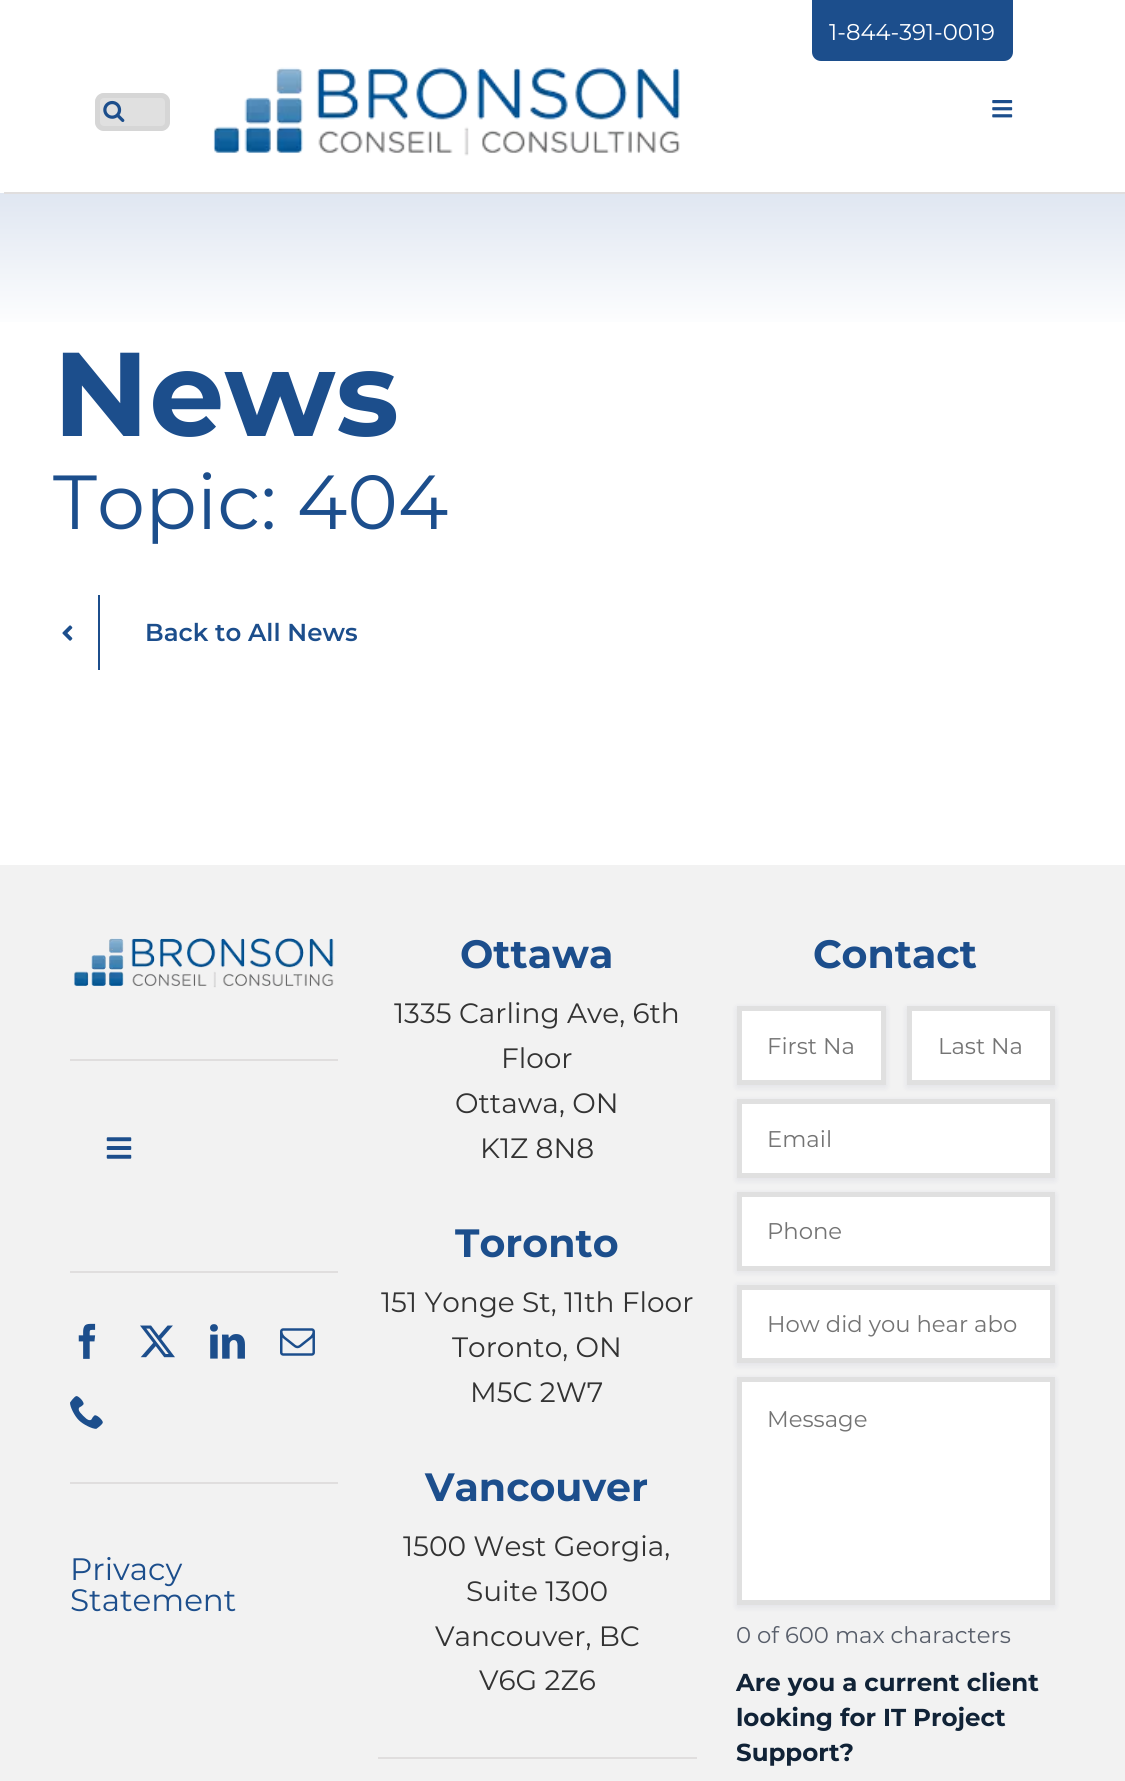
import math
import cairo

surface = cairo.ImageSurface(cairo.FORMAT_RGB24, 1125, 1781)
ctx = cairo.Context(surface)
options = cairo.FontOptions()
options.set_hint_metrics(cairo.HINT_METRICS_OFF)
options.set_hint_style(cairo.HINT_STYLE_NONE)
ctx.set_font_options(options)
ctx.set_miter_limit(4)


def round_rect(x, y, w, h, r):
    ctx.new_sub_path()
    for i, (u, v) in enumerate([(x + w - r, y + h - r), (x + r, y + h - r), (x + r, y + r), (x + w - r, y + r)]):
        ctx.arc(u, v, r, i * math.pi / 2, (i + 1) * math.pi / 2)
    ctx.close_path()


def shadow(x, y, w, h, r, blur, alpha):
    ctx.push_group_with_content(cairo.CONTENT_ALPHA)
    ctx.set_operator(cairo.OPERATOR_SOURCE)
    for i in range(15, -16, -2):
        e = blur * i / 6
        if min(w, h) + 2 * e > 0:
            ctx.set_source_rgba(0, 0, 0, alpha * math.erfc((i - 1) / 8.5) / 2)
            round_rect(x - e, y - e, w + 2 * e, h + 2 * e, max(0, min(r + e + blur * .6, min(w, h) / 2 + e)))
            ctx.fill()
    ctx.mask(ctx.pop_group())


def picture(path, x, y, w, h):
    ctx.save()
    ctx.set_source_surface(cairo.ImageSurface.create_from_png(path), x, y)
    ctx.rectangle(x, y, w, h)
    ctx.fill()
    ctx.restore()


ctx.set_source_rgb(1, 1, 1)
ctx.paint()
gradient = cairo.LinearGradient(563, 192, 563, 758)
gradient.add_color_stop_rgba(0, 0.875, 0.902, 0.945, 1)
gradient.add_color_stop_rgba(0.25, 1, 1, 1, 1)
ctx.set_source(gradient)
ctx.rectangle(0, 193, 1125, 129)
ctx.fill()
ctx.set_source_rgb(0.878, 0.871, 0.871)
ctx.new_path()
ctx.move_to(4, 192)
ctx.line_to(4, 194)
ctx.line_to(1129, 194)
ctx.line_to(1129, 2)
ctx.line_to(1125, 2)
ctx.line_to(1125, 192)
ctx.close_path()
ctx.fill()
ctx.set_source_rgb(0.11, 0.306, 0.549)
ctx.new_path()
ctx.move_to(812, -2)
ctx.line_to(1013, -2)
ctx.line_to(1013, 52)
ctx.curve_to(1013, 57, 1009, 61, 1004, 61)
ctx.line_to(821, 61)
ctx.curve_to(816, 61, 812, 57, 812, 52)
ctx.close_path()
ctx.fill()
ctx.select_font_face("Montserrat")
ctx.set_font_size(22.75)
ctx.set_source_rgb(1, 1, 1)
ctx.move_to(829, 40)
ctx.show_text("1-844-391-0019")
ctx.set_source_rgb(0.878, 0.878, 0.878)
round_rect(95, 93, 75, 38, 9)
ctx.fill()
round_rect(97.5, 95.5, 70, 33, 6.5)
ctx.set_source_rgba(0.824, 0.824, 0.824, 0.7)
ctx.set_line_width(5)
ctx.stroke()
picture("img1.png", 103, 100, 22, 22)
picture("img2.png", 213, 67, 467, 89)
picture("img3.png", 992, 100, 21, 18)
ctx.select_font_face("Montserrat", cairo.FONT_SLANT_NORMAL, cairo.FONT_WEIGHT_BOLD)
ctx.set_font_size(119)
ctx.set_source_rgb(0.11, 0.306, 0.549)
ctx.move_to(53, 436)
ctx.show_text("News")
ctx.select_font_face("Montserrat")
ctx.set_font_size(76.5)
ctx.move_to(53, 529)
ctx.show_text("Topic: 404")
ctx.rectangle(98, 595, 2, 75)
ctx.fill()
picture("img4.png", 62, 625, 11, 16)
ctx.select_font_face("Montserrat SemiBold")
ctx.set_font_size(24.5)
ctx.move_to(145, 641)
ctx.show_text("Back to All News")
ctx.set_source_rgb(0.949, 0.949, 0.949)
ctx.rectangle(0, 865, 1125, 916)
ctx.fill()
picture("img5.png", 73, 938, 261, 50)
ctx.set_source_rgb(0.878, 0.871, 0.871)
ctx.rectangle(70, 1059, 268, 2)
ctx.fill()
picture("img6.png", 106, 1137, 26, 22)
ctx.rectangle(70, 1271, 268, 2)
ctx.fill()
picture("img7.png", 78, 1323, 18, 36)
picture("img8.png", 140, 1325, 35, 33)
picture("img9.png", 210, 1324, 35, 35)
picture("img10.png", 280, 1328, 35, 28)
picture("img11.png", 70, 1396, 33, 33)
ctx.rectangle(70, 1482, 268, 2)
ctx.fill()
ctx.select_font_face("Montserrat")
ctx.set_font_size(31)
ctx.set_source_rgb(0.11, 0.306, 0.549)
ctx.move_to(70, 1580)
ctx.show_text("Privacy")
ctx.move_to(70, 1611)
ctx.show_text("Statement")
ctx.select_font_face("Montserrat", cairo.FONT_SLANT_NORMAL, cairo.FONT_WEIGHT_BOLD)
ctx.set_font_size(39.5)
ctx.move_to(460, 968)
ctx.show_text("Ottawa")
ctx.select_font_face("Montserrat")
ctx.set_font_size(28)
ctx.set_source_rgb(0.2, 0.2, 0.2)
ctx.move_to(394, 1023)
ctx.show_text("1335 Carling Ave, 6th")
ctx.move_to(501, 1068)
ctx.show_text("Floor")
ctx.move_to(455, 1113)
ctx.show_text("Ottawa, ON")
ctx.move_to(480, 1158)
ctx.show_text("K1Z 8N8")
ctx.select_font_face("Montserrat", cairo.FONT_SLANT_NORMAL, cairo.FONT_WEIGHT_BOLD)
ctx.set_font_size(39.5)
ctx.set_source_rgb(0.11, 0.306, 0.549)
ctx.move_to(455, 1257)
ctx.show_text("Toronto")
ctx.select_font_face("Montserrat")
ctx.set_font_size(28)
ctx.set_source_rgb(0.2, 0.2, 0.2)
ctx.move_to(381, 1312)
ctx.show_text("151 Yonge St, 11th Floor")
ctx.move_to(452, 1357)
ctx.show_text("Toronto, ON")
ctx.move_to(470, 1402)
ctx.show_text("M5C 2W7")
ctx.select_font_face("Montserrat", cairo.FONT_SLANT_NORMAL, cairo.FONT_WEIGHT_BOLD)
ctx.set_font_size(39.5)
ctx.set_source_rgb(0.11, 0.306, 0.549)
ctx.move_to(425, 1501)
ctx.show_text("Vancouver")
ctx.select_font_face("Montserrat")
ctx.set_font_size(28)
ctx.set_source_rgb(0.2, 0.2, 0.2)
ctx.move_to(403, 1556)
ctx.show_text("1500 West Georgia,")
ctx.move_to(466, 1601)
ctx.show_text("Suite 1300")
ctx.move_to(435, 1646)
ctx.show_text("Vancouver, BC")
ctx.move_to(479, 1690)
ctx.show_text("V6G 2Z6")
ctx.set_source_rgb(0.878, 0.871, 0.871)
ctx.rectangle(378, 1757, 319, 2)
ctx.fill()
ctx.select_font_face("Montserrat", cairo.FONT_SLANT_NORMAL, cairo.FONT_WEIGHT_BOLD)
ctx.set_font_size(39.5)
ctx.set_source_rgb(0.11, 0.306, 0.549)
ctx.move_to(813, 968)
ctx.show_text("Contact")
ctx.set_source_rgb(0.071, 0.098, 0.38)
shadow(737, 1008, 149, 79, 0, 3.5, 0.08)
ctx.set_source_rgb(1, 1, 1)
ctx.rectangle(739.5, 1008.5, 144, 74)
ctx.fill_preserve()
ctx.set_source_rgb(0.878, 0.878, 0.878)
ctx.stroke()
ctx.select_font_face("Montserrat")
ctx.set_font_size(22.75)
ctx.set_source_rgb(0.455, 0.455, 0.455)
ctx.move_to(767, 1054)
ctx.show_text("First Na")
ctx.set_source_rgb(0.071, 0.098, 0.38)
shadow(907, 1008, 148, 79, 0, 3.5, 0.08)
ctx.set_source_rgb(1, 1, 1)
ctx.rectangle(909.5, 1008.5, 143, 74)
ctx.fill_preserve()
ctx.set_source_rgb(0.878, 0.878, 0.878)
ctx.stroke()
ctx.set_source_rgb(0.455, 0.455, 0.455)
ctx.move_to(938, 1054)
ctx.show_text("Last Na")
ctx.set_source_rgb(0.071, 0.098, 0.38)
shadow(737, 1101, 318, 79, 0, 3.5, 0.08)
ctx.set_source_rgb(1, 1, 1)
ctx.rectangle(739.5, 1101.5, 313, 74)
ctx.fill_preserve()
ctx.set_source_rgb(0.878, 0.878, 0.878)
ctx.stroke()
ctx.set_source_rgb(0.455, 0.455, 0.455)
ctx.move_to(767, 1147)
ctx.show_text("Email")
ctx.set_source_rgb(0.071, 0.098, 0.38)
shadow(737, 1194, 318, 78, 0, 3.5, 0.08)
ctx.set_source_rgb(1, 1, 1)
ctx.rectangle(739.5, 1194.5, 313, 74)
ctx.fill_preserve()
ctx.set_source_rgb(0.878, 0.878, 0.878)
ctx.stroke()
ctx.set_source_rgb(0.455, 0.455, 0.455)
ctx.move_to(767, 1239)
ctx.show_text("Phone")
ctx.set_source_rgb(0.071, 0.098, 0.38)
shadow(737, 1286, 318, 79, 0, 3.5, 0.08)
ctx.set_source_rgb(1, 1, 1)
ctx.rectangle(739.5, 1287.5, 313, 73)
ctx.fill_preserve()
ctx.set_source_rgb(0.878, 0.878, 0.878)
ctx.stroke()
ctx.set_source_rgb(0.455, 0.455, 0.455)
ctx.move_to(767, 1332)
ctx.show_text("How did you hear abo")
ctx.set_source_rgb(0.071, 0.098, 0.38)
shadow(737, 1379, 318, 228, 0, 3.5, 0.08)
ctx.set_source_rgb(1, 1, 1)
ctx.rectangle(739.5, 1379.5, 313, 223)
ctx.fill_preserve()
ctx.set_source_rgb(0.878, 0.878, 0.878)
ctx.stroke()
ctx.set_source_rgb(0.455, 0.455, 0.455)
ctx.move_to(767, 1427)
ctx.show_text("Message")
ctx.set_source_rgb(0.345, 0.369, 0.416)
ctx.move_to(736, 1643)
ctx.show_text("0 of 600 max characters")
ctx.select_font_face("Montserrat", cairo.FONT_SLANT_NORMAL, cairo.FONT_WEIGHT_BOLD)
ctx.set_font_size(24.5)
ctx.set_source_rgb(0.067, 0.137, 0.216)
ctx.move_to(736, 1691)
ctx.show_text("Are you a current client")
ctx.move_to(736, 1726)
ctx.show_text("looking for IT Project")
ctx.move_to(736, 1761)
ctx.show_text("Support?")
surface.write_to_png("page.png")
